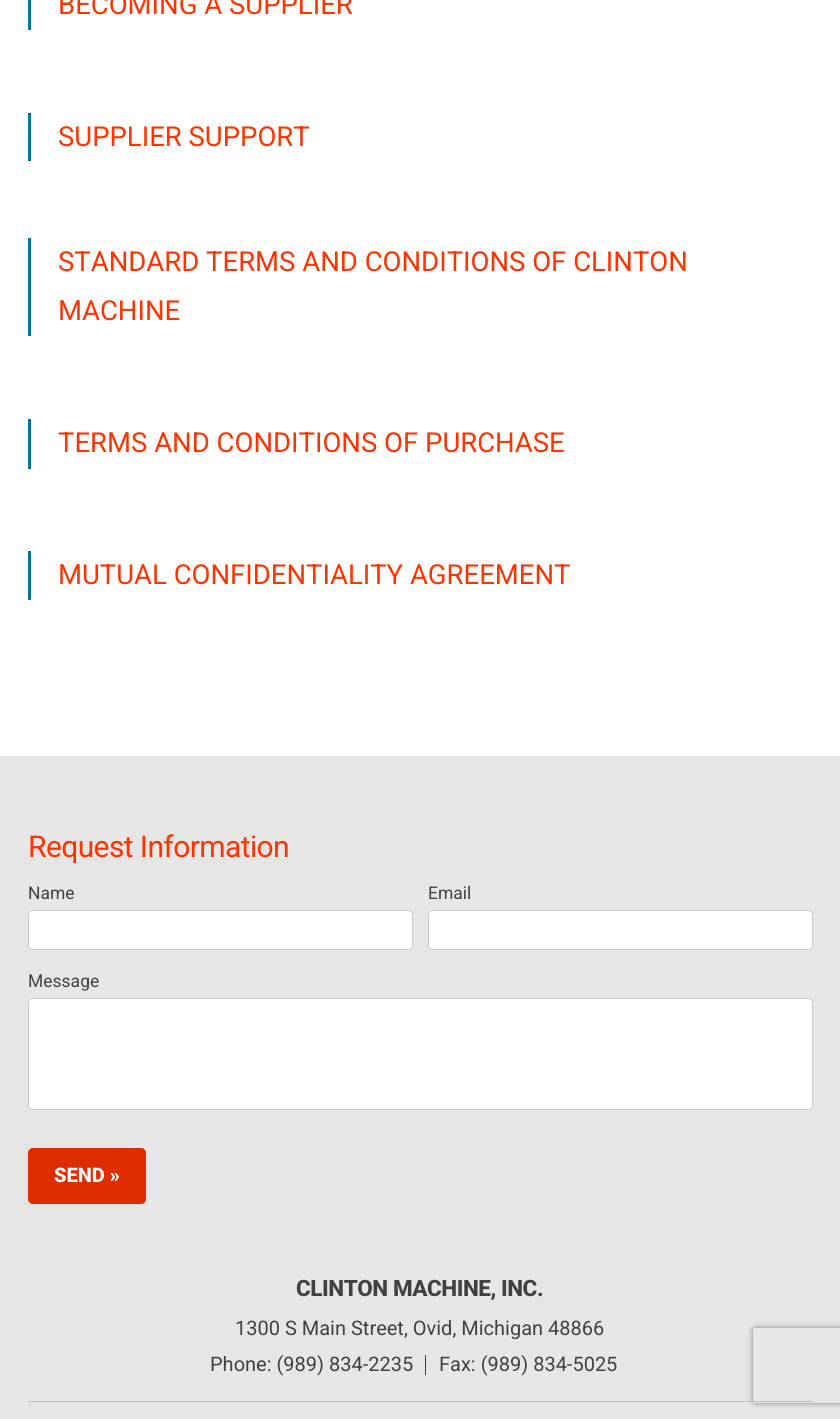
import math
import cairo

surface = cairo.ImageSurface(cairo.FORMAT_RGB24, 840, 1419)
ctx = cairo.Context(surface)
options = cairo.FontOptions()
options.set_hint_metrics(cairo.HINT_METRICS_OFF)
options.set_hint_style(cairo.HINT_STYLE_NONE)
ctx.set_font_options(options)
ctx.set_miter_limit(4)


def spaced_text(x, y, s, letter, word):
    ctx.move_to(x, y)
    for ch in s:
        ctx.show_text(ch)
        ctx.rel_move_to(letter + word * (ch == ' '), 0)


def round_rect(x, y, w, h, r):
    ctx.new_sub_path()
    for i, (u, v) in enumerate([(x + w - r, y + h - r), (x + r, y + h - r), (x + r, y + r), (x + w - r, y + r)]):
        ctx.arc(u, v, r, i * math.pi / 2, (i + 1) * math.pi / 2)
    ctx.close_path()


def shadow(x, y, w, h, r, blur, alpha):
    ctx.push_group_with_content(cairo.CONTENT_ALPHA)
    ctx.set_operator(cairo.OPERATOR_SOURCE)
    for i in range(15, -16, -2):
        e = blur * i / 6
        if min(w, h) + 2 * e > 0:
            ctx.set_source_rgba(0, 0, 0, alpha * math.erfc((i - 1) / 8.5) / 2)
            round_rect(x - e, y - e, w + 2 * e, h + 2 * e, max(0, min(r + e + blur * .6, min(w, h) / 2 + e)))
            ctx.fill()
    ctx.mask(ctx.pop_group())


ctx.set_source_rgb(1, 1, 1)
ctx.paint()
ctx.set_source_rgb(0, 0.451, 0.667)
ctx.rectangle(28, 0, 3, 30)
ctx.fill()
ctx.select_font_face("Roboto")
ctx.set_font_size(27.5)
ctx.set_source_rgb(1, 0.2, 0)
ctx.move_to(58, 14)
ctx.show_text("BECOMING A SUPPLIER")
ctx.set_source_rgb(0, 0.451, 0.667)
ctx.rectangle(28, 113, 3, 48)
ctx.fill()
ctx.set_source_rgb(1, 0.2, 0)
ctx.move_to(58, 146)
ctx.show_text("SUPPLIER SUPPORT")
ctx.set_source_rgb(0, 0.451, 0.667)
ctx.rectangle(28, 238, 3, 98)
ctx.fill()
ctx.set_source_rgb(1, 0.2, 0)
ctx.move_to(58, 271)
ctx.show_text("STANDARD TERMS AND CONDITIONS OF CLINTON")
ctx.move_to(58, 320)
ctx.show_text("MACHINE")
ctx.set_source_rgb(0, 0.451, 0.667)
ctx.rectangle(28, 419, 3, 50)
ctx.fill()
ctx.set_source_rgb(1, 0.2, 0)
ctx.move_to(58, 452)
ctx.show_text("TERMS AND CONDITIONS OF PURCHASE")
ctx.set_source_rgb(0, 0.451, 0.667)
ctx.rectangle(28, 551, 3, 49)
ctx.fill()
ctx.set_source_rgb(1, 0.2, 0)
ctx.move_to(58, 584)
ctx.show_text("MUTUAL CONFIDENTIALITY AGREEMENT")
ctx.set_source_rgb(0.902, 0.902, 0.902)
ctx.rectangle(0, 756, 840, 663)
ctx.fill()
ctx.set_font_size(30)
ctx.set_source_rgb(1, 0.2, 0)
spaced_text(28, 857, "Request Information", -0.6, 0)
ctx.set_font_size(17.5)
ctx.set_source_rgb(0.255, 0.255, 0.255)
ctx.move_to(28, 899)
ctx.show_text("Name")
ctx.set_source_rgb(1, 1, 1)
round_rect(28.5, 910.5, 384, 39, 4.5)
ctx.fill_preserve()
ctx.set_source_rgb(0.8, 0.8, 0.8)
ctx.set_line_width(1)
ctx.stroke()
ctx.set_source_rgb(0.255, 0.255, 0.255)
ctx.move_to(428, 899)
ctx.show_text("Email")
ctx.set_source_rgb(1, 1, 1)
round_rect(428.5, 910.5, 384, 39, 4.5)
ctx.fill_preserve()
ctx.set_source_rgb(0.8, 0.8, 0.8)
ctx.stroke()
ctx.set_source_rgb(0.255, 0.255, 0.255)
ctx.move_to(28, 987)
ctx.show_text("Message")
ctx.set_source_rgb(1, 1, 1)
round_rect(28.5, 998.5, 784, 111, 4.5)
ctx.fill_preserve()
ctx.set_source_rgb(0.8, 0.8, 0.8)
ctx.stroke()
ctx.set_source_rgb(0.878, 0.176, 0)
round_rect(28.5, 1148.5, 117, 55, 4.5)
ctx.fill_preserve()
ctx.stroke()
ctx.select_font_face("Roboto ExtraBold")
ctx.set_font_size(20)
ctx.set_source_rgb(1, 1, 1)
ctx.move_to(54, 1182)
ctx.show_text("SEND »")
ctx.save()
ctx.set_fill_rule(cairo.FILL_RULE_EVEN_ODD)
ctx.new_path()
ctx.move_to(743, 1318)
ctx.line_to(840, 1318)
ctx.line_to(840, 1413)
ctx.line_to(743, 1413)
ctx.close_path()
ctx.move_to(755.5, 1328)
ctx.line_to(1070.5, 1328)
ctx.curve_to(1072, 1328, 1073, 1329, 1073, 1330.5)
ctx.line_to(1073, 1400.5)
ctx.curve_to(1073, 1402, 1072, 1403, 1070.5, 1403)
ctx.line_to(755.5, 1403)
ctx.curve_to(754, 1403, 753, 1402, 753, 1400.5)
ctx.line_to(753, 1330.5)
ctx.curve_to(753, 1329, 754, 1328, 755.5, 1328)
ctx.close_path()
ctx.clip()
ctx.set_source_rgb(0.502, 0.502, 0.502)
shadow(753, 1328, 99, 75, 2.5, 3, 1)
ctx.restore()
ctx.set_font_size(22.5)
ctx.set_source_rgb(0.255, 0.255, 0.255)
spaced_text(296, 1296, "CLINTON MACHINE, INC.", -0.45, 0)
ctx.select_font_face("Roboto")
ctx.set_font_size(20)
ctx.move_to(235, 1335)
ctx.show_text("1300 S Main Street, Ovid, Michigan 48866")
ctx.move_to(210, 1371)
ctx.show_text("Phone: (989) 834-2235")
ctx.rectangle(425, 1355, 1, 20)
ctx.fill()
ctx.move_to(439, 1371)
ctx.show_text("Fax: (989) 834-5025")
ctx.set_source_rgb(0.733, 0.741, 0.749)
ctx.rectangle(28, 1401, 785, 1)
ctx.fill()
surface.write_to_png("page.png")
